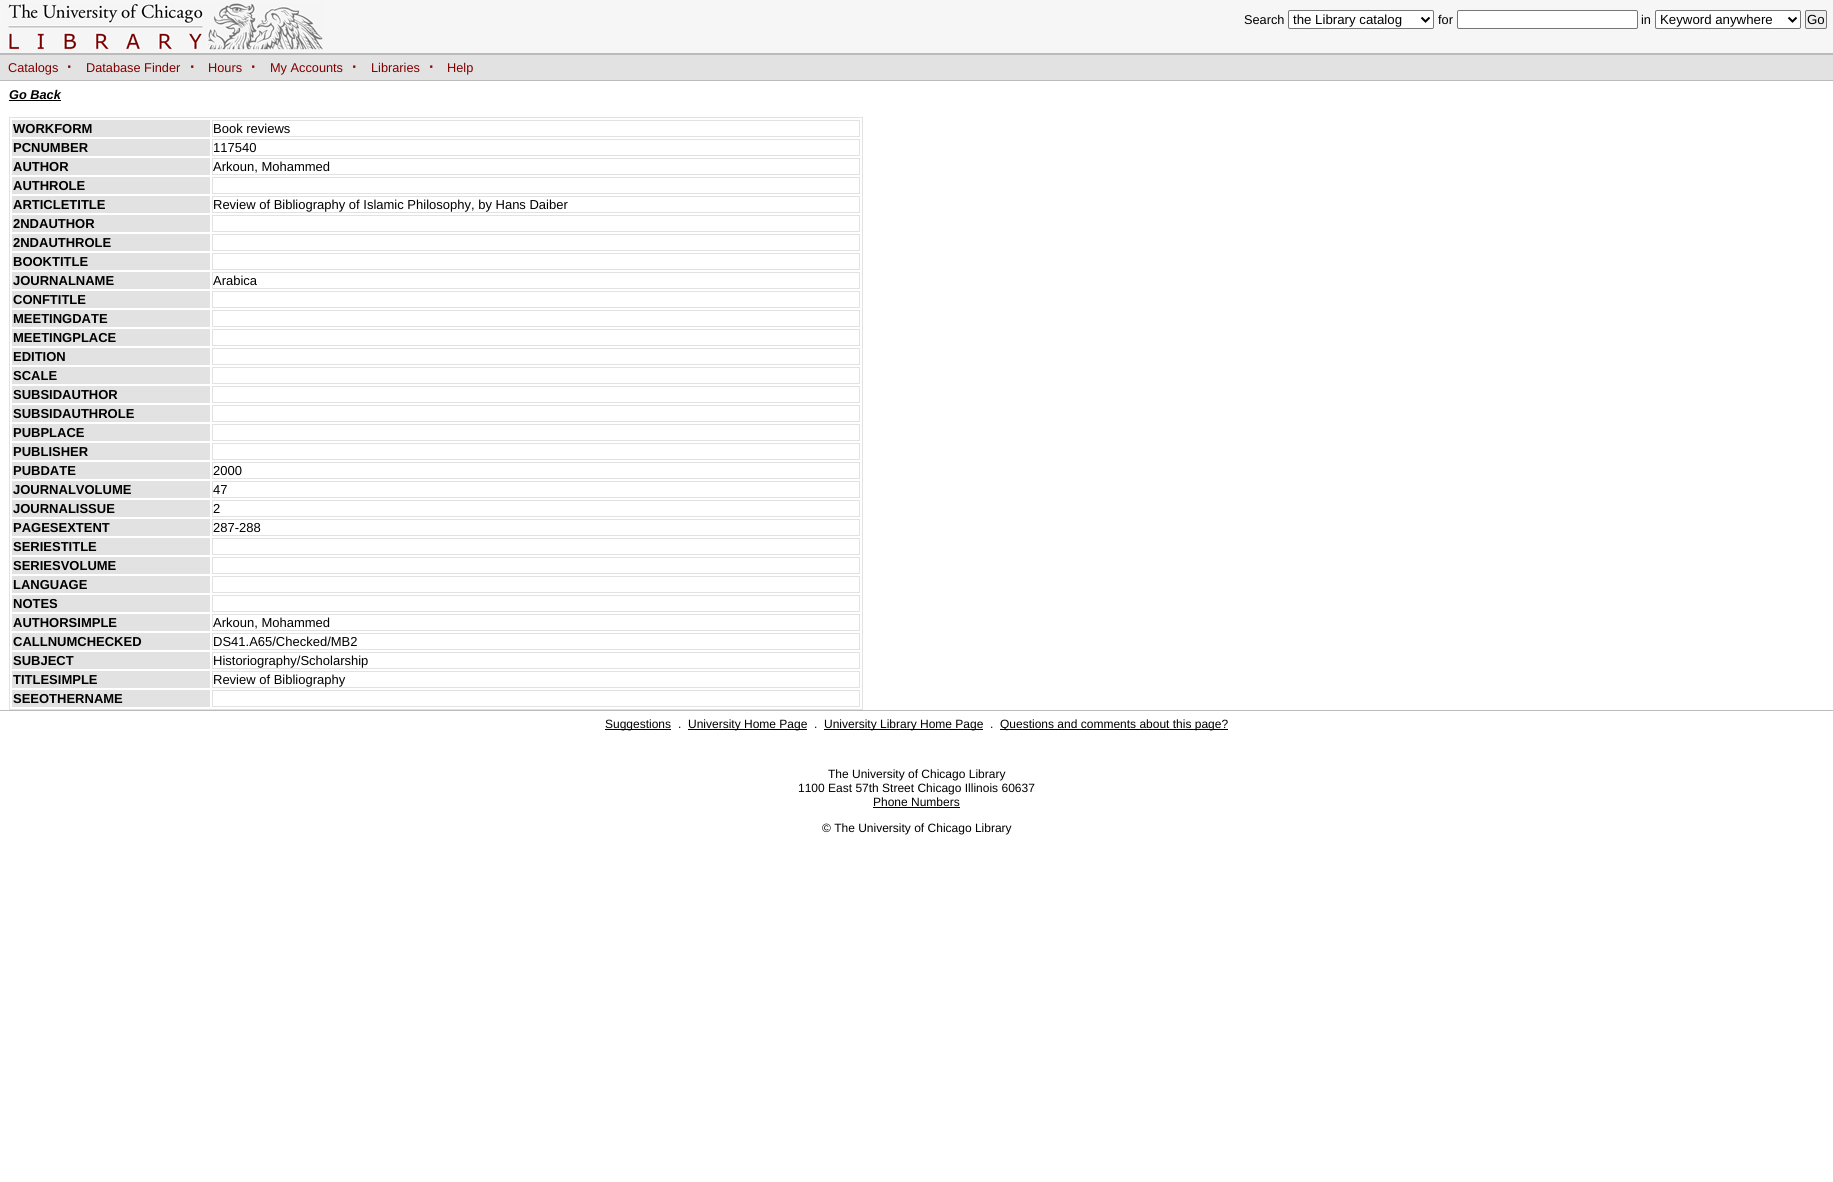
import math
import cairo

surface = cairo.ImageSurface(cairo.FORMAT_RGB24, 1833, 1182)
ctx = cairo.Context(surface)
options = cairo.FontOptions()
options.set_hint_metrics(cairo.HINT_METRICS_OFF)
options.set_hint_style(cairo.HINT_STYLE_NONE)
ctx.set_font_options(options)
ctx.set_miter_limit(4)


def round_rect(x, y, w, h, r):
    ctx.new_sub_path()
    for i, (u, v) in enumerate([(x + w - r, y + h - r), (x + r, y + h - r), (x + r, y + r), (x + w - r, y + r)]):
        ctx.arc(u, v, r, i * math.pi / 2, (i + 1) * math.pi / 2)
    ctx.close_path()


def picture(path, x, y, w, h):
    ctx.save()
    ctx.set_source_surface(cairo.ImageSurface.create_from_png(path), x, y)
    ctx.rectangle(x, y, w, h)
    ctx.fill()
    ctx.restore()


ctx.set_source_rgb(1, 1, 1)
ctx.paint()
ctx.set_source_rgb(0.961, 0.961, 0.961)
ctx.rectangle(0, 0, 1833, 53)
ctx.fill()
ctx.set_source_rgb(0.733, 0.733, 0.733)
ctx.rectangle(0, 53, 1833, 2)
ctx.fill()
picture("img1.png", 7, 2, 317, 48)
ctx.select_font_face("Liberation Sans")
ctx.set_font_size(12.75)
ctx.set_source_rgb(0, 0, 0)
ctx.move_to(1244, 24)
ctx.show_text("Search")
ctx.set_source_rgb(1, 1, 1)
round_rect(1288.5, 10.5, 145, 18, 1.5)
ctx.fill_preserve()
ctx.set_source_rgb(0.463, 0.463, 0.463)
ctx.set_line_width(1)
ctx.stroke()
ctx.new_path()
ctx.move_to(1421.5, 17.5)
ctx.line_to(1425.5, 21.5)
ctx.line_to(1429.5, 17.5)
ctx.set_source_rgb(0, 0, 0)
ctx.set_line_width(2)
ctx.stroke()
ctx.set_font_size(13.25)
ctx.move_to(1293, 24)
ctx.show_text("the Library catalog")
ctx.set_font_size(12.75)
ctx.move_to(1438, 24)
ctx.show_text("for")
ctx.set_source_rgb(1, 1, 1)
round_rect(1457.5, 10.5, 180, 18, 1.5)
ctx.fill_preserve()
ctx.set_source_rgb(0.463, 0.463, 0.463)
ctx.set_line_width(1)
ctx.stroke()
ctx.set_source_rgb(0, 0, 0)
ctx.move_to(1641, 24)
ctx.show_text("in")
ctx.set_source_rgb(1, 1, 1)
round_rect(1655.5, 10.5, 145, 18, 1.5)
ctx.fill_preserve()
ctx.set_source_rgb(0.463, 0.463, 0.463)
ctx.stroke()
ctx.new_path()
ctx.move_to(1788.5, 17.5)
ctx.line_to(1792.5, 21.5)
ctx.line_to(1796.5, 17.5)
ctx.set_source_rgb(0, 0, 0)
ctx.set_line_width(2)
ctx.stroke()
ctx.set_font_size(13.25)
ctx.move_to(1660, 24)
ctx.show_text("Keyword anywhere")
ctx.set_source_rgb(0.937, 0.937, 0.937)
round_rect(1805.5, 10.5, 21, 18, 1.5)
ctx.fill_preserve()
ctx.set_source_rgb(0.463, 0.463, 0.463)
ctx.set_line_width(1)
ctx.stroke()
ctx.set_source_rgb(0, 0, 0)
ctx.move_to(1807, 24)
ctx.show_text("Go")
ctx.set_source_rgb(0.886, 0.886, 0.886)
ctx.rectangle(0, 55, 1833, 25)
ctx.fill()
ctx.set_source_rgb(0.733, 0.733, 0.733)
ctx.rectangle(0, 80, 1833, 1)
ctx.fill()
ctx.set_font_size(12.75)
ctx.set_source_rgb(0.502, 0, 0)
ctx.move_to(8, 72)
ctx.show_text("Catalogs")
ctx.select_font_face("Liberation Sans", cairo.FONT_SLANT_NORMAL, cairo.FONT_WEIGHT_BOLD)
ctx.set_font_size(16)
ctx.move_to(67, 72)
ctx.show_text("·")
ctx.select_font_face("Liberation Sans")
ctx.set_font_size(12.75)
ctx.move_to(86, 72)
ctx.show_text("Database Finder")
ctx.select_font_face("Liberation Sans", cairo.FONT_SLANT_NORMAL, cairo.FONT_WEIGHT_BOLD)
ctx.set_font_size(16)
ctx.move_to(190, 72)
ctx.show_text("·")
ctx.select_font_face("Liberation Sans")
ctx.set_font_size(12.75)
ctx.move_to(208, 72)
ctx.show_text("Hours")
ctx.select_font_face("Liberation Sans", cairo.FONT_SLANT_NORMAL, cairo.FONT_WEIGHT_BOLD)
ctx.set_font_size(16)
ctx.move_to(251, 72)
ctx.show_text("·")
ctx.select_font_face("Liberation Sans")
ctx.set_font_size(12.75)
ctx.move_to(270, 72)
ctx.show_text("My Accounts")
ctx.select_font_face("Liberation Sans", cairo.FONT_SLANT_NORMAL, cairo.FONT_WEIGHT_BOLD)
ctx.set_font_size(16)
ctx.move_to(352, 72)
ctx.show_text("·")
ctx.select_font_face("Liberation Sans")
ctx.set_font_size(12.75)
ctx.move_to(371, 72)
ctx.show_text("Libraries")
ctx.select_font_face("Liberation Sans", cairo.FONT_SLANT_NORMAL, cairo.FONT_WEIGHT_BOLD)
ctx.set_font_size(16)
ctx.move_to(429, 72)
ctx.show_text("·")
ctx.select_font_face("Liberation Sans")
ctx.set_font_size(12.75)
ctx.move_to(447, 72)
ctx.show_text("Help")
ctx.select_font_face("Liberation Sans", cairo.FONT_SLANT_ITALIC, cairo.FONT_WEIGHT_BOLD)
ctx.set_source_rgb(0, 0, 0)
ctx.move_to(9, 99)
ctx.show_text("Go Back")
ctx.rectangle(9, 100, 52, 1)
ctx.fill()
ctx.rectangle(9.5, 117.5, 853, 592)
ctx.set_source_rgb(0.886, 0.886, 0.886)
ctx.stroke()
ctx.rectangle(12, 120, 198, 17)
ctx.fill()
ctx.select_font_face("Liberation Sans", cairo.FONT_SLANT_NORMAL, cairo.FONT_WEIGHT_BOLD)
ctx.set_font_size(13)
ctx.set_source_rgb(0, 0, 0)
ctx.move_to(13, 133)
ctx.show_text("WORKFORM")
ctx.rectangle(212.5, 120.5, 647, 16)
ctx.set_source_rgb(0.886, 0.886, 0.886)
ctx.stroke()
ctx.select_font_face("Liberation Sans")
ctx.set_source_rgb(0, 0, 0)
ctx.move_to(213, 133)
ctx.show_text("Book reviews")
ctx.set_source_rgb(0.886, 0.886, 0.886)
ctx.rectangle(12, 139, 198, 17)
ctx.fill()
ctx.select_font_face("Liberation Sans", cairo.FONT_SLANT_NORMAL, cairo.FONT_WEIGHT_BOLD)
ctx.set_source_rgb(0, 0, 0)
ctx.move_to(13, 152)
ctx.show_text("PCNUMBER")
ctx.rectangle(212.5, 139.5, 647, 16)
ctx.set_source_rgb(0.886, 0.886, 0.886)
ctx.stroke()
ctx.select_font_face("Liberation Sans")
ctx.set_source_rgb(0, 0, 0)
ctx.move_to(213, 152)
ctx.show_text("117540")
ctx.set_source_rgb(0.886, 0.886, 0.886)
ctx.rectangle(12, 158, 198, 17)
ctx.fill()
ctx.select_font_face("Liberation Sans", cairo.FONT_SLANT_NORMAL, cairo.FONT_WEIGHT_BOLD)
ctx.set_source_rgb(0, 0, 0)
ctx.move_to(13, 171)
ctx.show_text("AUTHOR")
ctx.rectangle(212.5, 158.5, 647, 16)
ctx.set_source_rgb(0.886, 0.886, 0.886)
ctx.stroke()
ctx.select_font_face("Liberation Sans")
ctx.set_source_rgb(0, 0, 0)
ctx.move_to(213, 171)
ctx.show_text("Arkoun, Mohammed")
ctx.set_source_rgb(0.886, 0.886, 0.886)
ctx.rectangle(12, 177, 198, 17)
ctx.fill()
ctx.select_font_face("Liberation Sans", cairo.FONT_SLANT_NORMAL, cairo.FONT_WEIGHT_BOLD)
ctx.set_source_rgb(0, 0, 0)
ctx.move_to(13, 190)
ctx.show_text("AUTHROLE")
ctx.rectangle(212.5, 177.5, 647, 16)
ctx.set_source_rgb(0.886, 0.886, 0.886)
ctx.stroke()
ctx.rectangle(12, 196, 198, 17)
ctx.fill()
ctx.set_source_rgb(0, 0, 0)
ctx.move_to(13, 209)
ctx.show_text("ARTICLETITLE")
ctx.rectangle(212.5, 196.5, 647, 16)
ctx.set_source_rgb(0.886, 0.886, 0.886)
ctx.stroke()
ctx.select_font_face("Liberation Sans")
ctx.set_source_rgb(0, 0, 0)
ctx.move_to(213, 209)
ctx.show_text("Review of Bibliography of Islamic Philosophy, by Hans Daiber")
ctx.set_source_rgb(0.886, 0.886, 0.886)
ctx.rectangle(12, 215, 198, 17)
ctx.fill()
ctx.select_font_face("Liberation Sans", cairo.FONT_SLANT_NORMAL, cairo.FONT_WEIGHT_BOLD)
ctx.set_source_rgb(0, 0, 0)
ctx.move_to(13, 228)
ctx.show_text("2NDAUTHOR")
ctx.rectangle(212.5, 215.5, 647, 16)
ctx.set_source_rgb(0.886, 0.886, 0.886)
ctx.stroke()
ctx.rectangle(12, 234, 198, 17)
ctx.fill()
ctx.set_source_rgb(0, 0, 0)
ctx.move_to(13, 247)
ctx.show_text("2NDAUTHROLE")
ctx.rectangle(212.5, 234.5, 647, 16)
ctx.set_source_rgb(0.886, 0.886, 0.886)
ctx.stroke()
ctx.rectangle(12, 253, 198, 17)
ctx.fill()
ctx.set_source_rgb(0, 0, 0)
ctx.move_to(13, 266)
ctx.show_text("BOOKTITLE")
ctx.rectangle(212.5, 253.5, 647, 16)
ctx.set_source_rgb(0.886, 0.886, 0.886)
ctx.stroke()
ctx.rectangle(12, 272, 198, 17)
ctx.fill()
ctx.set_source_rgb(0, 0, 0)
ctx.move_to(13, 285)
ctx.show_text("JOURNALNAME")
ctx.rectangle(212.5, 272.5, 647, 16)
ctx.set_source_rgb(0.886, 0.886, 0.886)
ctx.stroke()
ctx.select_font_face("Liberation Sans")
ctx.set_source_rgb(0, 0, 0)
ctx.move_to(213, 285)
ctx.show_text("Arabica")
ctx.set_source_rgb(0.886, 0.886, 0.886)
ctx.rectangle(12, 291, 198, 17)
ctx.fill()
ctx.select_font_face("Liberation Sans", cairo.FONT_SLANT_NORMAL, cairo.FONT_WEIGHT_BOLD)
ctx.set_source_rgb(0, 0, 0)
ctx.move_to(13, 304)
ctx.show_text("CONFTITLE")
ctx.rectangle(212.5, 291.5, 647, 16)
ctx.set_source_rgb(0.886, 0.886, 0.886)
ctx.stroke()
ctx.rectangle(12, 310, 198, 17)
ctx.fill()
ctx.set_source_rgb(0, 0, 0)
ctx.move_to(13, 323)
ctx.show_text("MEETINGDATE")
ctx.rectangle(212.5, 310.5, 647, 16)
ctx.set_source_rgb(0.886, 0.886, 0.886)
ctx.stroke()
ctx.rectangle(12, 329, 198, 17)
ctx.fill()
ctx.set_source_rgb(0, 0, 0)
ctx.move_to(13, 342)
ctx.show_text("MEETINGPLACE")
ctx.rectangle(212.5, 329.5, 647, 16)
ctx.set_source_rgb(0.886, 0.886, 0.886)
ctx.stroke()
ctx.rectangle(12, 348, 198, 17)
ctx.fill()
ctx.set_source_rgb(0, 0, 0)
ctx.move_to(13, 361)
ctx.show_text("EDITION")
ctx.rectangle(212.5, 348.5, 647, 16)
ctx.set_source_rgb(0.886, 0.886, 0.886)
ctx.stroke()
ctx.rectangle(12, 367, 198, 17)
ctx.fill()
ctx.set_source_rgb(0, 0, 0)
ctx.move_to(13, 380)
ctx.show_text("SCALE")
ctx.rectangle(212.5, 367.5, 647, 16)
ctx.set_source_rgb(0.886, 0.886, 0.886)
ctx.stroke()
ctx.rectangle(12, 386, 198, 17)
ctx.fill()
ctx.set_source_rgb(0, 0, 0)
ctx.move_to(13, 399)
ctx.show_text("SUBSIDAUTHOR")
ctx.rectangle(212.5, 386.5, 647, 16)
ctx.set_source_rgb(0.886, 0.886, 0.886)
ctx.stroke()
ctx.rectangle(12, 405, 198, 17)
ctx.fill()
ctx.set_source_rgb(0, 0, 0)
ctx.move_to(13, 418)
ctx.show_text("SUBSIDAUTHROLE")
ctx.rectangle(212.5, 405.5, 647, 16)
ctx.set_source_rgb(0.886, 0.886, 0.886)
ctx.stroke()
ctx.rectangle(12, 424, 198, 17)
ctx.fill()
ctx.set_source_rgb(0, 0, 0)
ctx.move_to(13, 437)
ctx.show_text("PUBPLACE")
ctx.rectangle(212.5, 424.5, 647, 16)
ctx.set_source_rgb(0.886, 0.886, 0.886)
ctx.stroke()
ctx.rectangle(12, 443, 198, 17)
ctx.fill()
ctx.set_source_rgb(0, 0, 0)
ctx.move_to(13, 456)
ctx.show_text("PUBLISHER")
ctx.rectangle(212.5, 443.5, 647, 16)
ctx.set_source_rgb(0.886, 0.886, 0.886)
ctx.stroke()
ctx.rectangle(12, 462, 198, 17)
ctx.fill()
ctx.set_source_rgb(0, 0, 0)
ctx.move_to(13, 475)
ctx.show_text("PUBDATE")
ctx.rectangle(212.5, 462.5, 647, 16)
ctx.set_source_rgb(0.886, 0.886, 0.886)
ctx.stroke()
ctx.select_font_face("Liberation Sans")
ctx.set_source_rgb(0, 0, 0)
ctx.move_to(213, 475)
ctx.show_text("2000")
ctx.set_source_rgb(0.886, 0.886, 0.886)
ctx.rectangle(12, 481, 198, 17)
ctx.fill()
ctx.select_font_face("Liberation Sans", cairo.FONT_SLANT_NORMAL, cairo.FONT_WEIGHT_BOLD)
ctx.set_source_rgb(0, 0, 0)
ctx.move_to(13, 494)
ctx.show_text("JOURNALVOLUME")
ctx.rectangle(212.5, 481.5, 647, 16)
ctx.set_source_rgb(0.886, 0.886, 0.886)
ctx.stroke()
ctx.select_font_face("Liberation Sans")
ctx.set_source_rgb(0, 0, 0)
ctx.move_to(213, 494)
ctx.show_text("47")
ctx.set_source_rgb(0.886, 0.886, 0.886)
ctx.rectangle(12, 500, 198, 17)
ctx.fill()
ctx.select_font_face("Liberation Sans", cairo.FONT_SLANT_NORMAL, cairo.FONT_WEIGHT_BOLD)
ctx.set_source_rgb(0, 0, 0)
ctx.move_to(13, 513)
ctx.show_text("JOURNALISSUE")
ctx.rectangle(212.5, 500.5, 647, 16)
ctx.set_source_rgb(0.886, 0.886, 0.886)
ctx.stroke()
ctx.select_font_face("Liberation Sans")
ctx.set_source_rgb(0, 0, 0)
ctx.move_to(213, 513)
ctx.show_text("2")
ctx.set_source_rgb(0.886, 0.886, 0.886)
ctx.rectangle(12, 519, 198, 17)
ctx.fill()
ctx.select_font_face("Liberation Sans", cairo.FONT_SLANT_NORMAL, cairo.FONT_WEIGHT_BOLD)
ctx.set_source_rgb(0, 0, 0)
ctx.move_to(13, 532)
ctx.show_text("PAGESEXTENT")
ctx.rectangle(212.5, 519.5, 647, 16)
ctx.set_source_rgb(0.886, 0.886, 0.886)
ctx.stroke()
ctx.select_font_face("Liberation Sans")
ctx.set_source_rgb(0, 0, 0)
ctx.move_to(213, 532)
ctx.show_text("287-288")
ctx.set_source_rgb(0.886, 0.886, 0.886)
ctx.rectangle(12, 538, 198, 17)
ctx.fill()
ctx.select_font_face("Liberation Sans", cairo.FONT_SLANT_NORMAL, cairo.FONT_WEIGHT_BOLD)
ctx.set_source_rgb(0, 0, 0)
ctx.move_to(13, 551)
ctx.show_text("SERIESTITLE")
ctx.rectangle(212.5, 538.5, 647, 16)
ctx.set_source_rgb(0.886, 0.886, 0.886)
ctx.stroke()
ctx.rectangle(12, 557, 198, 17)
ctx.fill()
ctx.set_source_rgb(0, 0, 0)
ctx.move_to(13, 570)
ctx.show_text("SERIESVOLUME")
ctx.rectangle(212.5, 557.5, 647, 16)
ctx.set_source_rgb(0.886, 0.886, 0.886)
ctx.stroke()
ctx.rectangle(12, 576, 198, 17)
ctx.fill()
ctx.set_source_rgb(0, 0, 0)
ctx.move_to(13, 589)
ctx.show_text("LANGUAGE")
ctx.rectangle(212.5, 576.5, 647, 16)
ctx.set_source_rgb(0.886, 0.886, 0.886)
ctx.stroke()
ctx.rectangle(12, 595, 198, 17)
ctx.fill()
ctx.set_source_rgb(0, 0, 0)
ctx.move_to(13, 608)
ctx.show_text("NOTES")
ctx.rectangle(212.5, 595.5, 647, 16)
ctx.set_source_rgb(0.886, 0.886, 0.886)
ctx.stroke()
ctx.rectangle(12, 614, 198, 17)
ctx.fill()
ctx.set_source_rgb(0, 0, 0)
ctx.move_to(13, 627)
ctx.show_text("AUTHORSIMPLE")
ctx.rectangle(212.5, 614.5, 647, 16)
ctx.set_source_rgb(0.886, 0.886, 0.886)
ctx.stroke()
ctx.select_font_face("Liberation Sans")
ctx.set_source_rgb(0, 0, 0)
ctx.move_to(213, 627)
ctx.show_text("Arkoun, Mohammed")
ctx.set_source_rgb(0.886, 0.886, 0.886)
ctx.rectangle(12, 633, 198, 17)
ctx.fill()
ctx.select_font_face("Liberation Sans", cairo.FONT_SLANT_NORMAL, cairo.FONT_WEIGHT_BOLD)
ctx.set_source_rgb(0, 0, 0)
ctx.move_to(13, 646)
ctx.show_text("CALLNUMCHECKED")
ctx.rectangle(212.5, 633.5, 647, 16)
ctx.set_source_rgb(0.886, 0.886, 0.886)
ctx.stroke()
ctx.select_font_face("Liberation Sans")
ctx.set_source_rgb(0, 0, 0)
ctx.move_to(213, 646)
ctx.show_text("DS41.A65/Checked/MB2")
ctx.set_source_rgb(0.886, 0.886, 0.886)
ctx.rectangle(12, 652, 198, 17)
ctx.fill()
ctx.select_font_face("Liberation Sans", cairo.FONT_SLANT_NORMAL, cairo.FONT_WEIGHT_BOLD)
ctx.set_source_rgb(0, 0, 0)
ctx.move_to(13, 665)
ctx.show_text("SUBJECT")
ctx.rectangle(212.5, 652.5, 647, 16)
ctx.set_source_rgb(0.886, 0.886, 0.886)
ctx.stroke()
ctx.select_font_face("Liberation Sans")
ctx.set_source_rgb(0, 0, 0)
ctx.move_to(213, 665)
ctx.show_text("Historiography/Scholarship")
ctx.set_source_rgb(0.886, 0.886, 0.886)
ctx.rectangle(12, 671, 198, 17)
ctx.fill()
ctx.select_font_face("Liberation Sans", cairo.FONT_SLANT_NORMAL, cairo.FONT_WEIGHT_BOLD)
ctx.set_source_rgb(0, 0, 0)
ctx.move_to(13, 684)
ctx.show_text("TITLESIMPLE")
ctx.rectangle(212.5, 671.5, 647, 16)
ctx.set_source_rgb(0.886, 0.886, 0.886)
ctx.stroke()
ctx.select_font_face("Liberation Sans")
ctx.set_source_rgb(0, 0, 0)
ctx.move_to(213, 684)
ctx.show_text("Review of Bibliography")
ctx.set_source_rgb(0.886, 0.886, 0.886)
ctx.rectangle(12, 690, 198, 17)
ctx.fill()
ctx.select_font_face("Liberation Sans", cairo.FONT_SLANT_NORMAL, cairo.FONT_WEIGHT_BOLD)
ctx.set_source_rgb(0, 0, 0)
ctx.move_to(13, 703)
ctx.show_text("SEEOTHERNAME")
ctx.rectangle(212.5, 690.5, 647, 16)
ctx.set_source_rgb(0.886, 0.886, 0.886)
ctx.stroke()
ctx.set_source_rgb(0.733, 0.733, 0.733)
ctx.rectangle(0, 710, 1833, 1)
ctx.fill()
ctx.set_source_rgb(0, 0, 0)
ctx.rectangle(605, 729, 66, 1)
ctx.fill()
ctx.select_font_face("Liberation Sans")
ctx.set_font_size(12)
ctx.move_to(605, 728)
ctx.show_text("Suggestions")
ctx.move_to(678, 728)
ctx.show_text(".")
ctx.rectangle(688, 729, 119, 1)
ctx.fill()
ctx.move_to(688, 728)
ctx.show_text("University Home Page")
ctx.move_to(814, 728)
ctx.show_text(".")
ctx.rectangle(824, 729, 159, 1)
ctx.fill()
ctx.move_to(824, 728)
ctx.show_text("University Library Home Page")
ctx.move_to(990, 728)
ctx.show_text(".")
ctx.rectangle(1000, 729, 228, 1)
ctx.fill()
ctx.move_to(1000, 728)
ctx.show_text("Questions and comments about this page?")
ctx.move_to(828, 778)
ctx.show_text("The University of Chicago Library")
ctx.move_to(798, 792)
ctx.show_text("1100 East 57th Street Chicago Illinois 60637")
ctx.move_to(873, 806)
ctx.show_text("Phone Numbers")
ctx.rectangle(873, 807, 87, 1)
ctx.fill()
ctx.move_to(822, 832)
ctx.show_text("© The University of Chicago Library")
surface.write_to_png("page.png")
